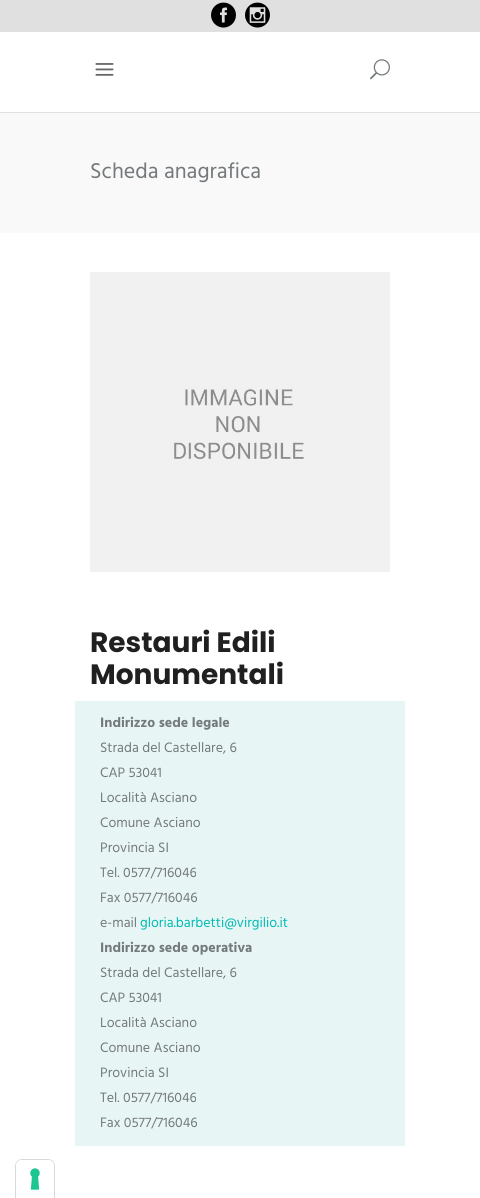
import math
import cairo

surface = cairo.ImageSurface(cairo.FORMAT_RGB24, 480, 1198)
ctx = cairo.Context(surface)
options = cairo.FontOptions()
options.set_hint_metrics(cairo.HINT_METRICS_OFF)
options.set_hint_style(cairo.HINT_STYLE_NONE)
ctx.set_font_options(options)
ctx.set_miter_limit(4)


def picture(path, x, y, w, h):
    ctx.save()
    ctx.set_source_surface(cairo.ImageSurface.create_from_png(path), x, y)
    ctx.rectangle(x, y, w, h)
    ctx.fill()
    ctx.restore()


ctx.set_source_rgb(1, 1, 1)
ctx.paint()
ctx.set_source_rgb(0.878, 0.878, 0.878)
ctx.rectangle(0, 0, 480, 32)
ctx.fill()
picture("img1.png", 211, 2, 25, 26)
picture("img2.png", 245, 2, 25, 26)
ctx.set_source_rgb(0.882, 0.882, 0.882)
ctx.rectangle(0, 112, 480, 1)
ctx.fill()
picture("img3.png", 95, 63, 19, 13)
picture("img4.png", 370, 59, 20, 21)
ctx.set_source_rgb(0.976, 0.976, 0.976)
ctx.rectangle(0, 113, 480, 120)
ctx.fill()
ctx.select_font_face("Hind")
ctx.set_font_size(22)
ctx.set_source_rgb(0.455, 0.475, 0.482)
ctx.move_to(90, 178)
ctx.show_text("Scheda anagrafica")
picture("img5.png", 90, 272, 300, 300)
ctx.select_font_face("Poppins", cairo.FONT_SLANT_NORMAL, cairo.FONT_WEIGHT_BOLD)
ctx.set_font_size(28)
ctx.set_source_rgb(0.125, 0.125, 0.125)
ctx.move_to(90, 652)
ctx.show_text("Restauri Edili")
ctx.move_to(90, 684)
ctx.show_text("Monumentali")
ctx.set_source_rgb(0.906, 0.961, 0.957)
ctx.rectangle(75, 701, 330, 445)
ctx.fill()
ctx.select_font_face("Hind", cairo.FONT_SLANT_NORMAL, cairo.FONT_WEIGHT_BOLD)
ctx.set_font_size(14)
ctx.set_source_rgb(0.455, 0.475, 0.482)
ctx.move_to(100, 727)
ctx.show_text("Indirizzo sede legale")
ctx.select_font_face("Hind")
ctx.move_to(100, 752)
ctx.show_text("Strada del Castellare, 6")
ctx.move_to(100, 777)
ctx.show_text("CAP 53041")
ctx.move_to(100, 802)
ctx.show_text("Località Asciano")
ctx.move_to(100, 827)
ctx.show_text("Comune Asciano")
ctx.move_to(100, 852)
ctx.show_text("Provincia SI")
ctx.move_to(100, 877)
ctx.show_text("Tel. 0577/716046")
ctx.move_to(100, 902)
ctx.show_text("Fax 0577/716046")
ctx.move_to(100, 927)
ctx.show_text("e-mail")
ctx.set_source_rgb(0, 0.733, 0.702)
ctx.move_to(140, 927)
ctx.show_text("gloria.barbetti@virgilio.it")
ctx.select_font_face("Hind", cairo.FONT_SLANT_NORMAL, cairo.FONT_WEIGHT_BOLD)
ctx.set_source_rgb(0.455, 0.475, 0.482)
ctx.move_to(100, 952)
ctx.show_text("Indirizzo sede operativa")
ctx.select_font_face("Hind")
ctx.move_to(100, 977)
ctx.show_text("Strada del Castellare, 6")
ctx.move_to(100, 1002)
ctx.show_text("CAP 53041")
ctx.move_to(100, 1027)
ctx.show_text("Località Asciano")
ctx.move_to(100, 1052)
ctx.show_text("Comune Asciano")
ctx.move_to(100, 1077)
ctx.show_text("Provincia SI")
ctx.move_to(100, 1102)
ctx.show_text("Tel. 0577/716046")
ctx.move_to(100, 1127)
ctx.show_text("Fax 0577/716046")
ctx.new_path()
ctx.move_to(22, 1159.5)
ctx.line_to(48, 1159.5)
ctx.curve_to(51.5, 1159.5, 54.5, 1162.5, 54.5, 1166)
ctx.line_to(54.5, 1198.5)
ctx.line_to(15.5, 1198.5)
ctx.line_to(15.5, 1166)
ctx.curve_to(15.5, 1162.5, 18.5, 1159.5, 22, 1159.5)
ctx.close_path()
ctx.set_source_rgb(0.851, 0.851, 0.851)
ctx.set_line_width(1)
ctx.stroke()
ctx.set_source_rgb(1, 1, 1)
ctx.new_path()
ctx.move_to(22, 1160)
ctx.line_to(48, 1160)
ctx.curve_to(51.5, 1160, 54, 1162.5, 54, 1166)
ctx.line_to(54, 1198)
ctx.line_to(16, 1198)
ctx.line_to(16, 1166)
ctx.curve_to(16, 1162.5, 18.5, 1160, 22, 1160)
ctx.close_path()
ctx.fill()
picture("img6.png", 30, 1168, 10, 22)
surface.write_to_png("page.png")
